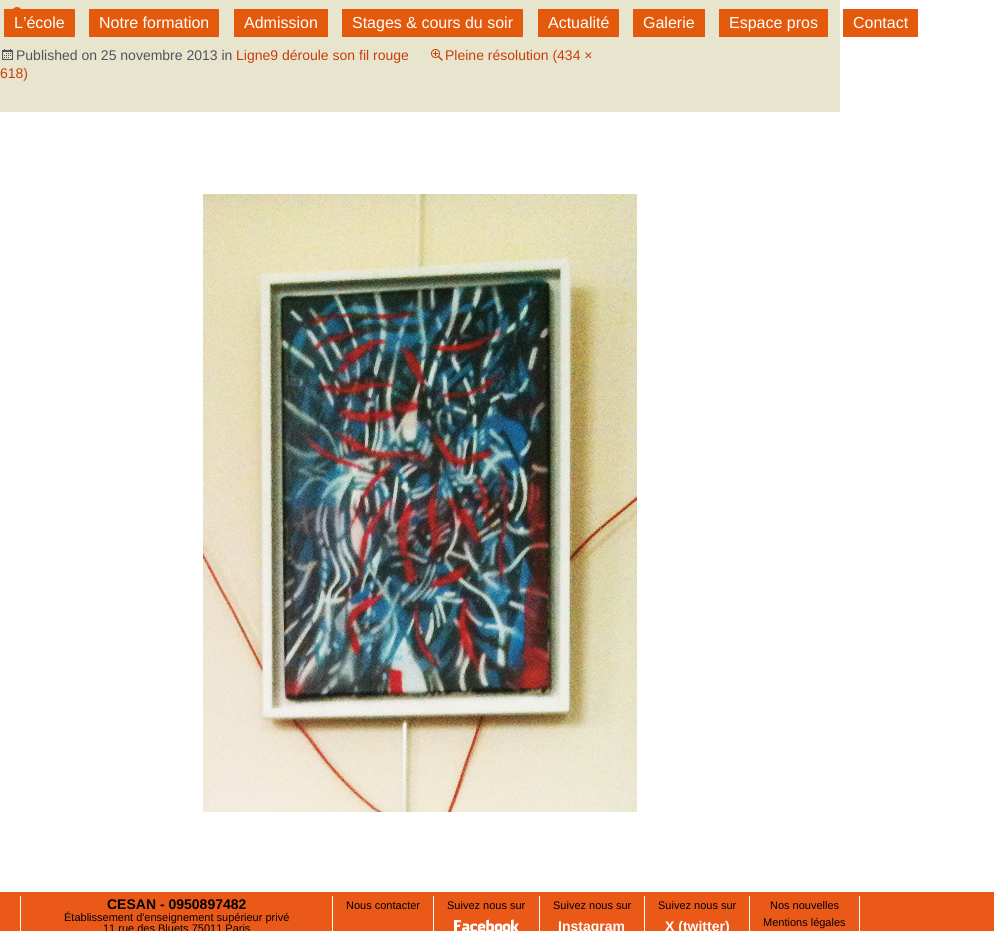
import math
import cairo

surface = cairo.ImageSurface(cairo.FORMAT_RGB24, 994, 931)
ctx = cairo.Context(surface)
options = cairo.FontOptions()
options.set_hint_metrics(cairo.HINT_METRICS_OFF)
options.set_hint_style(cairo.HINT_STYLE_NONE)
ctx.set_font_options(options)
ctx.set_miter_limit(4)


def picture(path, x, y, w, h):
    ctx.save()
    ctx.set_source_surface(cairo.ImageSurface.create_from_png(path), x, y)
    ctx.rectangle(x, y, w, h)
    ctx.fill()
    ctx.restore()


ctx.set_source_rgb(1, 1, 1)
ctx.paint()
ctx.set_source_rgb(0.91, 0.898, 0.808)
ctx.rectangle(0, 0, 840, 112)
ctx.fill()
ctx.set_source_rgb(0.89, 0.353, 0.047)
ctx.rectangle(4, 9, 71, 28)
ctx.fill()
ctx.select_font_face("Liberation Sans")
ctx.set_font_size(16)
ctx.set_source_rgb(1, 1, 1)
ctx.move_to(14, 28)
ctx.show_text("L’école")
ctx.set_source_rgb(0.89, 0.353, 0.047)
ctx.rectangle(89, 9, 130, 28)
ctx.fill()
ctx.set_source_rgb(1, 1, 1)
ctx.move_to(99, 28)
ctx.show_text("Notre formation")
ctx.set_source_rgb(0.89, 0.353, 0.047)
ctx.rectangle(234, 9, 94, 28)
ctx.fill()
ctx.set_source_rgb(1, 1, 1)
ctx.move_to(244, 28)
ctx.show_text("Admission")
ctx.set_source_rgb(0.89, 0.353, 0.047)
ctx.rectangle(342, 9, 181, 28)
ctx.fill()
ctx.set_source_rgb(1, 1, 1)
ctx.move_to(352, 28)
ctx.show_text("Stages & cours du soir")
ctx.set_source_rgb(0.89, 0.353, 0.047)
ctx.rectangle(538, 9, 81, 28)
ctx.fill()
ctx.set_source_rgb(1, 1, 1)
ctx.move_to(548, 28)
ctx.show_text("Actualité")
ctx.set_source_rgb(0.89, 0.353, 0.047)
ctx.rectangle(633, 9, 72, 28)
ctx.fill()
ctx.set_source_rgb(1, 1, 1)
ctx.move_to(643, 28)
ctx.show_text("Galerie")
ctx.set_source_rgb(0.89, 0.353, 0.047)
ctx.rectangle(719, 9, 109, 28)
ctx.fill()
ctx.set_source_rgb(1, 1, 1)
ctx.move_to(729, 28)
ctx.show_text("Espace pros")
ctx.set_source_rgb(0.89, 0.353, 0.047)
ctx.rectangle(843, 9, 75, 28)
ctx.fill()
ctx.set_source_rgb(1, 1, 1)
ctx.move_to(853, 28)
ctx.show_text("Contact")
picture("img1.png", 13, 7, 8, 2)
picture("img2.png", 431, 49, 12, 12)
ctx.set_font_size(14)
ctx.set_source_rgb(0.792, 0.235, 0.031)
ctx.move_to(445, 60)
ctx.show_text("Pleine résolution (434 ×")
ctx.move_to(0, 78)
ctx.show_text("618)")
picture("img3.png", 2, 49, 11, 11)
ctx.set_source_rgb(0.333, 0.318, 0.361)
ctx.move_to(16, 60)
ctx.show_text("Published on 25 novembre 2013 in")
ctx.set_source_rgb(0.792, 0.235, 0.031)
ctx.move_to(236, 60)
ctx.show_text("Ligne9 déroule son fil rouge")
picture("img4.png", 203, 194, 434, 618)
ctx.set_source_rgb(0.918, 0.349, 0.098)
ctx.rectangle(0, 892, 994, 39)
ctx.fill()
ctx.set_source_rgb(1, 1, 1)
ctx.rectangle(332, 896, 1, 35)
ctx.fill()
ctx.rectangle(20, 896, 1, 35)
ctx.fill()
ctx.select_font_face("Liberation Sans", cairo.FONT_SLANT_NORMAL, cairo.FONT_WEIGHT_BOLD)
ctx.set_source_rgb(0, 0, 0)
ctx.move_to(107, 909)
ctx.show_text("CESAN - 0950897482")
ctx.select_font_face("Liberation Sans")
ctx.set_font_size(11)
ctx.move_to(64, 921)
ctx.show_text("Établissement d'enseignement supérieur privé")
ctx.move_to(103, 932)
ctx.show_text("11 rue des Bluets 75011 Paris")
ctx.set_source_rgb(1, 1, 1)
ctx.rectangle(433, 896, 1, 35)
ctx.fill()
ctx.set_source_rgb(0, 0, 0)
ctx.move_to(346, 909)
ctx.show_text("Nous contacter")
ctx.set_source_rgb(1, 1, 1)
ctx.rectangle(539, 896, 1, 35)
ctx.fill()
ctx.set_source_rgb(0, 0, 0)
ctx.move_to(447, 909)
ctx.show_text("Suivez nous sur")
picture("img5.png", 454, 919, 65, 12)
ctx.set_source_rgb(1, 1, 1)
ctx.rectangle(644, 896, 1, 35)
ctx.fill()
ctx.set_source_rgb(0, 0, 0)
ctx.move_to(553, 909)
ctx.show_text("Suivez nous sur")
ctx.select_font_face("Liberation Sans", cairo.FONT_SLANT_NORMAL, cairo.FONT_WEIGHT_BOLD)
ctx.set_font_size(14)
ctx.set_source_rgb(1, 1, 1)
ctx.move_to(558, 931)
ctx.show_text("Instagram")
ctx.rectangle(749, 896, 1, 35)
ctx.fill()
ctx.select_font_face("Liberation Sans")
ctx.set_font_size(11)
ctx.set_source_rgb(0, 0, 0)
ctx.move_to(658, 909)
ctx.show_text("Suivez nous sur")
ctx.select_font_face("Liberation Sans", cairo.FONT_SLANT_NORMAL, cairo.FONT_WEIGHT_BOLD)
ctx.set_font_size(14)
ctx.set_source_rgb(1, 1, 1)
ctx.move_to(665, 931)
ctx.show_text("X (twitter)")
ctx.rectangle(859, 896, 1, 35)
ctx.fill()
ctx.select_font_face("Liberation Sans")
ctx.set_font_size(11)
ctx.set_source_rgb(0, 0, 0)
ctx.move_to(770, 909)
ctx.show_text("Nos nouvelles")
ctx.move_to(763, 926)
ctx.show_text("Mentions légales")
surface.write_to_png("page.png")
